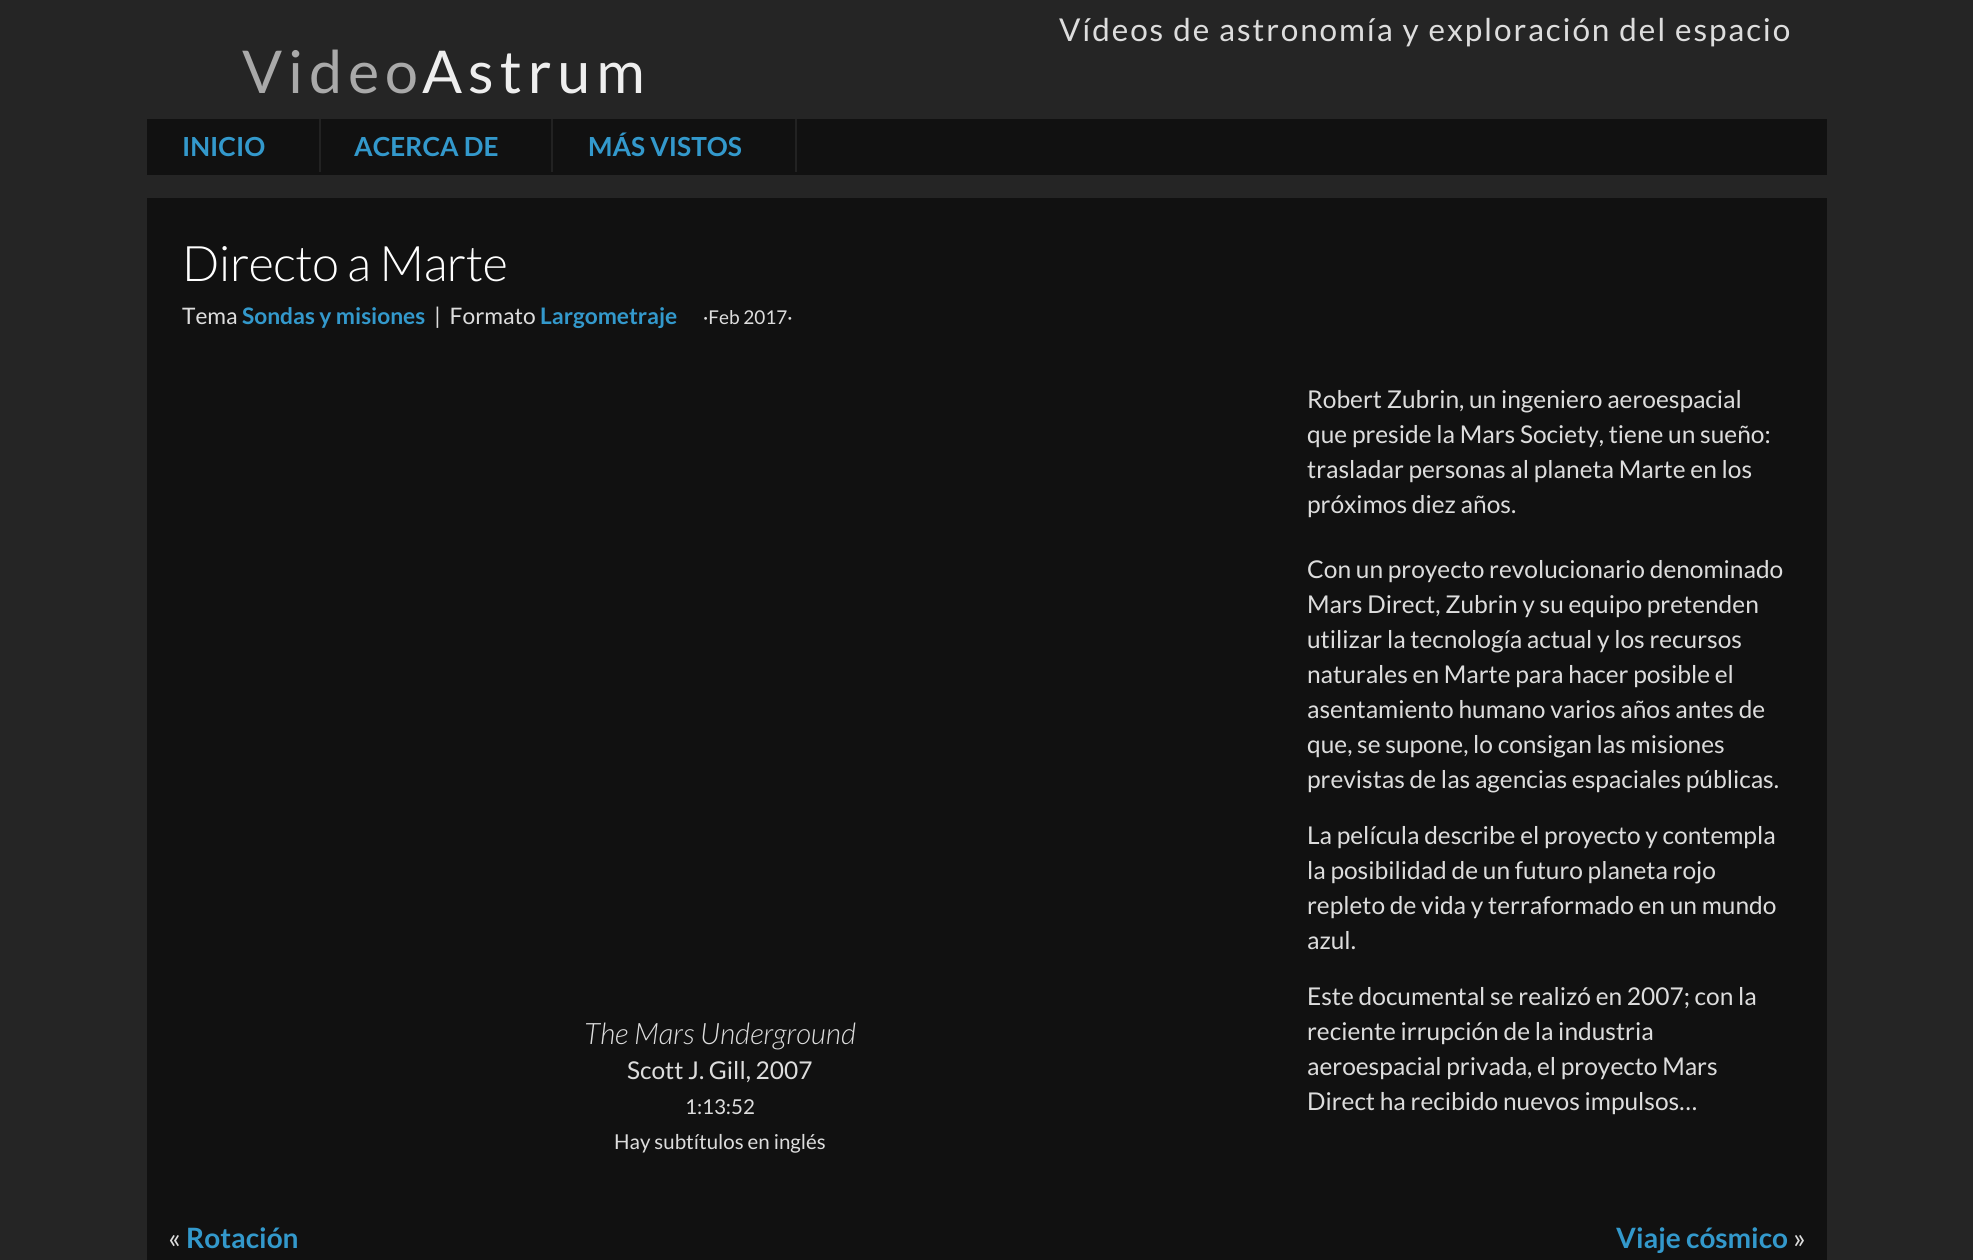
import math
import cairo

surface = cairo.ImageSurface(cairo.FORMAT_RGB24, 1973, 1260)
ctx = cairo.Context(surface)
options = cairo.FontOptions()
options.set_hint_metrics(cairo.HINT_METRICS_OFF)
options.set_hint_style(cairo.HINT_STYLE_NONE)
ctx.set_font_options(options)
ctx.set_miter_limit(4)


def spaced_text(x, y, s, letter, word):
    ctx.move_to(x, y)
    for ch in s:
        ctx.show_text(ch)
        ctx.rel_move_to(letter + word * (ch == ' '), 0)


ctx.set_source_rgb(0.145, 0.145, 0.145)
ctx.paint()
ctx.select_font_face("Lato")
ctx.set_font_size(31.5)
ctx.set_source_rgb(0.867, 0.867, 0.867)
spaced_text(1059, 41, "Vídeos de astronomía y exploración del espacio", 1.9, 0)
ctx.set_font_size(59)
ctx.set_source_rgb(0.663, 0.663, 0.663)
spaced_text(242, 93, "Video", 6, 0)
ctx.set_source_rgb(0.933, 0.933, 0.933)
spaced_text(422, 93, "Astrum", 6, 0)
ctx.set_source_rgb(0.067, 0.067, 0.067)
ctx.rectangle(147, 119, 1680, 56)
ctx.fill()
ctx.set_source_rgb(0.133, 0.133, 0.133)
ctx.rectangle(319, 119, 2, 53)
ctx.fill()
ctx.select_font_face("Lato", cairo.FONT_SLANT_NORMAL, cairo.FONT_WEIGHT_BOLD)
ctx.set_font_size(26.25)
ctx.set_source_rgb(0.2, 0.6, 0.8)
ctx.move_to(182, 156)
ctx.show_text("INICIO")
ctx.set_source_rgb(0.133, 0.133, 0.133)
ctx.rectangle(551, 119, 2, 53)
ctx.fill()
ctx.set_source_rgb(0.2, 0.6, 0.8)
ctx.move_to(354, 156)
ctx.show_text("ACERCA DE")
ctx.set_source_rgb(0.133, 0.133, 0.133)
ctx.rectangle(795, 119, 2, 53)
ctx.fill()
ctx.set_source_rgb(0.2, 0.6, 0.8)
ctx.move_to(588, 156)
ctx.show_text("MÁS VISTOS")
ctx.set_source_rgb(0.067, 0.067, 0.067)
ctx.rectangle(147, 198, 1680, 1062)
ctx.fill()
ctx.select_font_face("Lato Light")
ctx.set_font_size(49)
ctx.set_source_rgb(1, 1, 1)
spaced_text(182, 281, "Directo a Marte", -0.5, 0)
ctx.select_font_face("Lato")
ctx.set_font_size(22.75)
ctx.set_source_rgb(0.867, 0.867, 0.867)
ctx.move_to(182, 324)
ctx.show_text("Tema")
ctx.select_font_face("Lato", cairo.FONT_SLANT_NORMAL, cairo.FONT_WEIGHT_BOLD)
ctx.set_source_rgb(0.2, 0.6, 0.8)
ctx.move_to(242, 324)
ctx.show_text("Sondas y misiones")
ctx.select_font_face("Lato")
ctx.set_source_rgb(0.867, 0.867, 0.867)
ctx.move_to(434, 324)
ctx.show_text("|  Formato")
ctx.select_font_face("Lato", cairo.FONT_SLANT_NORMAL, cairo.FONT_WEIGHT_BOLD)
ctx.set_source_rgb(0.2, 0.6, 0.8)
ctx.move_to(540, 324)
ctx.show_text("Largometraje")
ctx.select_font_face("Lato")
ctx.set_font_size(19)
ctx.set_source_rgb(0.867, 0.867, 0.867)
ctx.move_to(703, 324)
ctx.show_text("·Feb 2017·")
ctx.select_font_face("Lato Light", cairo.FONT_SLANT_ITALIC)
ctx.set_font_size(29.5)
ctx.move_to(584, 1044)
ctx.show_text("The Mars Underground")
ctx.select_font_face("Lato")
ctx.set_font_size(24.5)
ctx.move_to(627, 1079)
ctx.show_text("Scott J. Gill, 2007")
ctx.set_font_size(20.5)
ctx.move_to(685, 1114)
ctx.show_text("1:13:52")
ctx.move_to(614, 1149)
ctx.show_text("Hay subtítulos en inglés")
ctx.set_font_size(24.5)
ctx.move_to(1307, 408)
ctx.show_text("Robert Zubrin, un ingeniero aeroespacial")
ctx.move_to(1307, 443)
ctx.show_text("que preside la Mars Society, tiene un sueño:")
ctx.move_to(1307, 478)
ctx.show_text("trasladar personas al planeta Marte en los")
ctx.move_to(1307, 513)
ctx.show_text("próximos diez años.")
ctx.move_to(1307, 578)
ctx.show_text("Con un proyecto revolucionario denominado")
ctx.move_to(1307, 613)
ctx.show_text("Mars Direct, Zubrin y su equipo pretenden")
ctx.move_to(1307, 648)
ctx.show_text("utilizar la tecnología actual y los recursos")
ctx.move_to(1307, 683)
ctx.show_text("naturales en Marte para hacer posible el")
ctx.move_to(1307, 718)
ctx.show_text("asentamiento humano varios años antes de")
ctx.move_to(1307, 753)
ctx.show_text("que, se supone, lo consigan las misiones")
ctx.move_to(1307, 788)
ctx.show_text("previstas de las agencias espaciales públicas.")
ctx.move_to(1307, 844)
ctx.show_text("La película describe el proyecto y contempla")
ctx.move_to(1307, 879)
ctx.show_text("la posibilidad de un futuro planeta rojo")
ctx.move_to(1307, 914)
ctx.show_text("repleto de vida y terraformado en un mundo")
ctx.move_to(1307, 949)
ctx.show_text("azul.")
ctx.move_to(1307, 1005)
ctx.show_text("Este documental se realizó en 2007; con la")
ctx.move_to(1307, 1040)
ctx.show_text("reciente irrupción de la industria")
ctx.move_to(1307, 1075)
ctx.show_text("aeroespacial privada, el proyecto Mars")
ctx.move_to(1307, 1110)
ctx.show_text("Direct ha recibido nuevos impulsos…")
ctx.set_font_size(28)
ctx.move_to(168, 1248)
ctx.show_text("«")
ctx.select_font_face("Lato", cairo.FONT_SLANT_NORMAL, cairo.FONT_WEIGHT_BOLD)
ctx.set_source_rgb(0.2, 0.6, 0.8)
ctx.move_to(186, 1248)
ctx.show_text("Rotación")
ctx.move_to(1616, 1248)
ctx.show_text("Viaje cósmico")
ctx.select_font_face("Lato")
ctx.set_source_rgb(0.867, 0.867, 0.867)
ctx.move_to(1793, 1248)
ctx.show_text("»")
surface.write_to_png("page.png")
